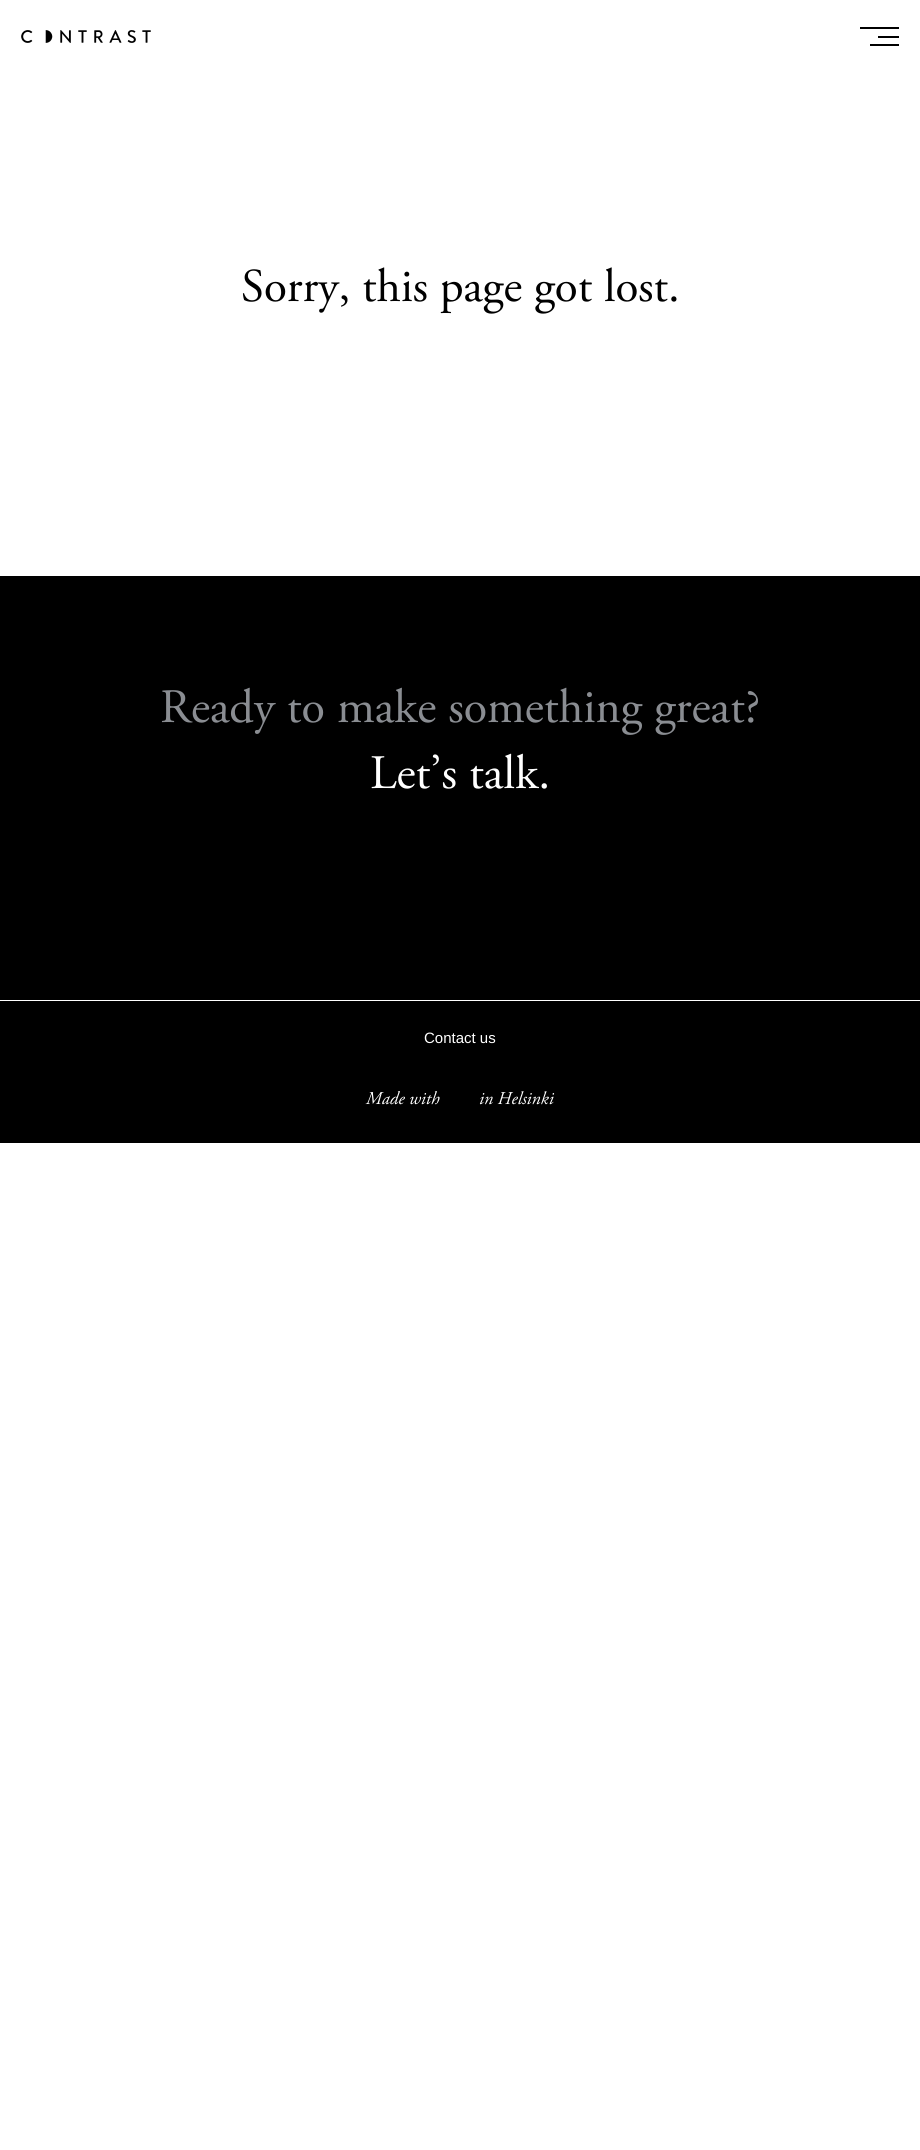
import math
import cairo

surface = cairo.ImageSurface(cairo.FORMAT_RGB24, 920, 2150)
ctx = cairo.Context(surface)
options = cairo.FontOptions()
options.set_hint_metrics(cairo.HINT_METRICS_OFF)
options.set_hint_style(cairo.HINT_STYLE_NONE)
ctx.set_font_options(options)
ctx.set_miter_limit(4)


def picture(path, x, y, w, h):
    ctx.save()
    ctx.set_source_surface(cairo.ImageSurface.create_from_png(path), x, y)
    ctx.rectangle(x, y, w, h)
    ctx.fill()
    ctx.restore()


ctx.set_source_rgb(1, 1, 1)
ctx.paint()
picture("img1.png", 21, 30, 130, 13)
ctx.set_source_rgb(0, 0, 0)
ctx.rectangle(860, 27, 39, 2)
ctx.fill()
ctx.rectangle(878, 36, 21, 2)
ctx.fill()
ctx.rectangle(870, 44, 29, 2)
ctx.fill()
ctx.select_font_face("Adobe Garamond")
ctx.set_font_size(47)
ctx.move_to(241, 301)
ctx.show_text("Sorry, this page got lost.")
ctx.rectangle(0, 576, 920, 567)
ctx.fill()
ctx.set_font_size(48)
ctx.set_source_rgb(0.541, 0.553, 0.573)
ctx.move_to(160, 722)
ctx.show_text("Ready to make something great?")
ctx.set_source_rgb(1, 1, 1)
ctx.move_to(370, 788)
ctx.show_text("Let’s talk.")
ctx.rectangle(0, 1000, 920, 1)
ctx.fill()
ctx.select_font_face("Liberation Sans")
ctx.set_font_size(15)
ctx.move_to(424, 1043)
ctx.show_text("Contact us")
ctx.select_font_face("Adobe Garamond", cairo.FONT_SLANT_ITALIC)
ctx.set_font_size(18)
ctx.move_to(366, 1104)
ctx.show_text("Made with")
ctx.move_to(479, 1104)
ctx.show_text("in Helsinki")
surface.write_to_png("page.png")
